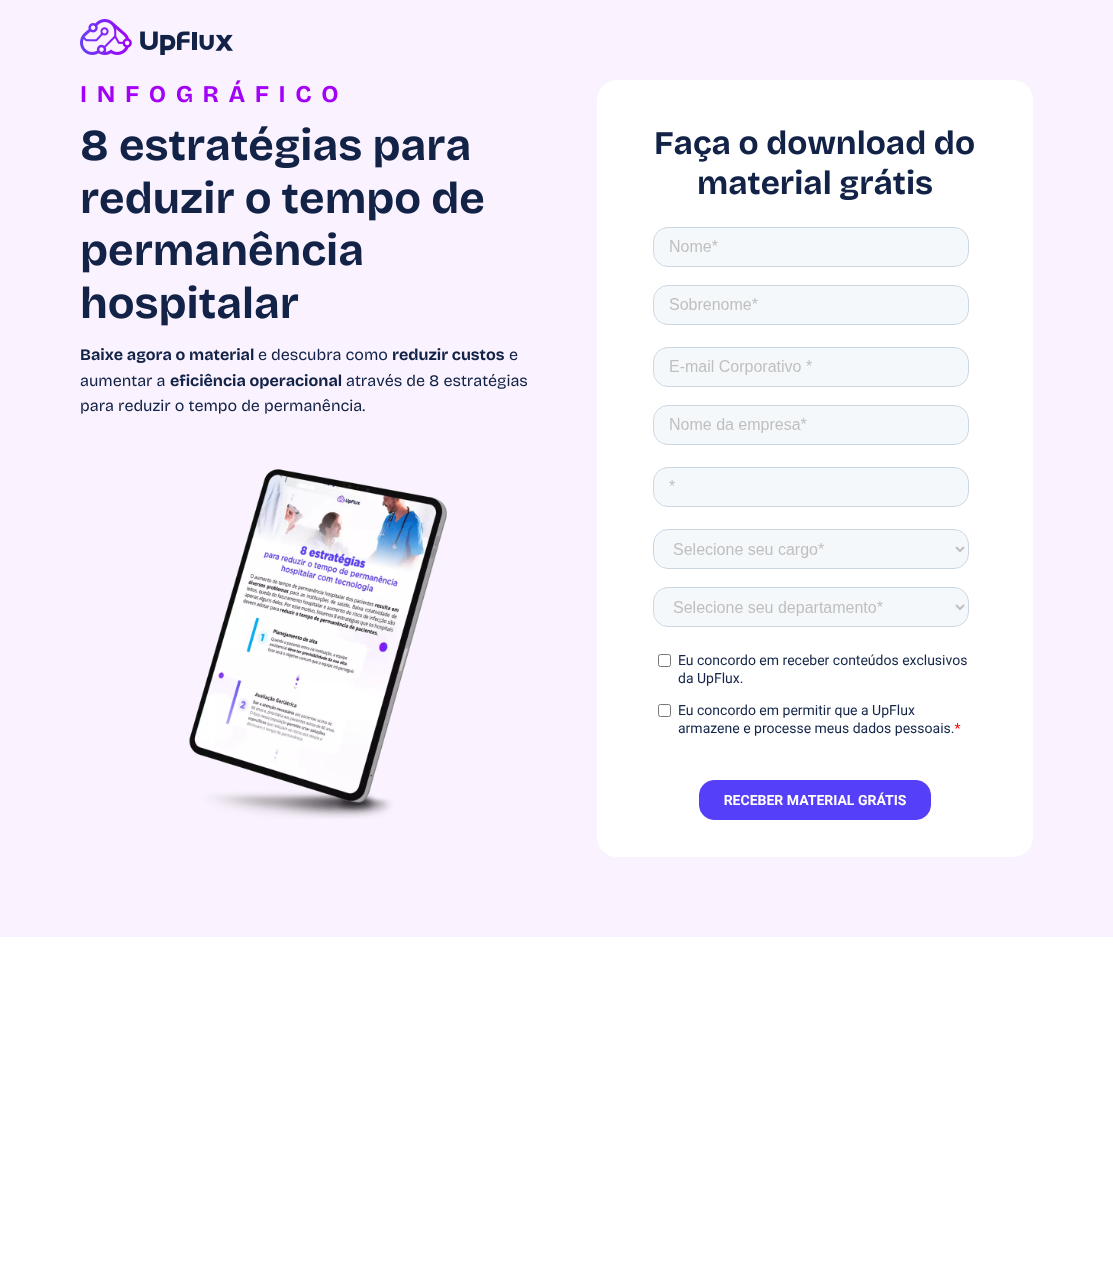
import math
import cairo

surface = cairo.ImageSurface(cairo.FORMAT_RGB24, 1113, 1277)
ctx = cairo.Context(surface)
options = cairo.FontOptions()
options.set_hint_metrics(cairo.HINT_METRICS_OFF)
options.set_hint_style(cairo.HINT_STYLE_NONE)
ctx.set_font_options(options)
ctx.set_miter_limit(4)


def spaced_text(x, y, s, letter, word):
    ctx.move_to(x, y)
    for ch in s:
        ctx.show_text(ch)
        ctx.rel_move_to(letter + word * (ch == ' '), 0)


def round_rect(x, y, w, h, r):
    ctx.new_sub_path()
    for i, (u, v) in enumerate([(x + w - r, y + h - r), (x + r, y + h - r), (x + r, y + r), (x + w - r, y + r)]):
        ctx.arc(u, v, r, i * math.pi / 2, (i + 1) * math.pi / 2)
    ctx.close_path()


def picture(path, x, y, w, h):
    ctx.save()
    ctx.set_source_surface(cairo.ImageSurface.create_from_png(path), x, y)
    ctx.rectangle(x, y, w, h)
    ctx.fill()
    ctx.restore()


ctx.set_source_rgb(1, 1, 1)
ctx.paint()
ctx.set_source_rgb(0.98, 0.949, 0.996)
ctx.rectangle(0, 0, 1113, 937)
ctx.fill()
picture("img1.png", 80, 19, 153, 36)
ctx.select_font_face("Bricolage Grotesque", cairo.FONT_SLANT_NORMAL, cairo.FONT_WEIGHT_BOLD)
ctx.set_font_size(24)
ctx.set_source_rgb(0.639, 0, 0.965)
spaced_text(80, 102, "INFOGRÁFICO", 9.6, 0)
ctx.set_font_size(44)
ctx.set_source_rgb(0.071, 0.137, 0.278)
ctx.move_to(80, 160)
ctx.show_text("8 estratégias para")
ctx.move_to(80, 213)
ctx.show_text("reduzir o tempo de")
ctx.move_to(80, 265)
ctx.show_text("permanência")
ctx.move_to(80, 318)
ctx.show_text("hospitalar")
ctx.set_font_size(16)
ctx.move_to(80, 360)
ctx.show_text("Baixe agora o material")
ctx.select_font_face("Bricolage Grotesque")
ctx.move_to(258, 360)
ctx.show_text("e descubra como")
ctx.select_font_face("Bricolage Grotesque", cairo.FONT_SLANT_NORMAL, cairo.FONT_WEIGHT_BOLD)
ctx.move_to(392, 360)
ctx.show_text("reduzir custos")
ctx.select_font_face("Bricolage Grotesque")
ctx.move_to(509, 360)
ctx.show_text("e")
ctx.move_to(80, 386)
ctx.show_text("aumentar a")
ctx.select_font_face("Bricolage Grotesque", cairo.FONT_SLANT_NORMAL, cairo.FONT_WEIGHT_BOLD)
ctx.move_to(170, 386)
ctx.show_text("eficiência operacional")
ctx.select_font_face("Bricolage Grotesque")
ctx.move_to(346, 386)
ctx.show_text("através de 8 estratégias")
ctx.move_to(80, 411)
ctx.show_text("para reduzir o tempo de permanência.")
picture("img2.png", 189, 469, 258, 350)
ctx.set_source_rgb(1, 1, 1)
round_rect(597, 80, 436, 777, 20)
ctx.fill()
ctx.select_font_face("Bricolage Grotesque", cairo.FONT_SLANT_NORMAL, cairo.FONT_WEIGHT_BOLD)
ctx.set_font_size(33)
ctx.set_source_rgb(0.071, 0.137, 0.278)
ctx.move_to(654, 154)
ctx.show_text("Faça o download do")
ctx.move_to(697, 194)
ctx.show_text("material grátis")
picture("img3.png", 653, 227, 316, 593)
surface.write_to_png("page.png")
